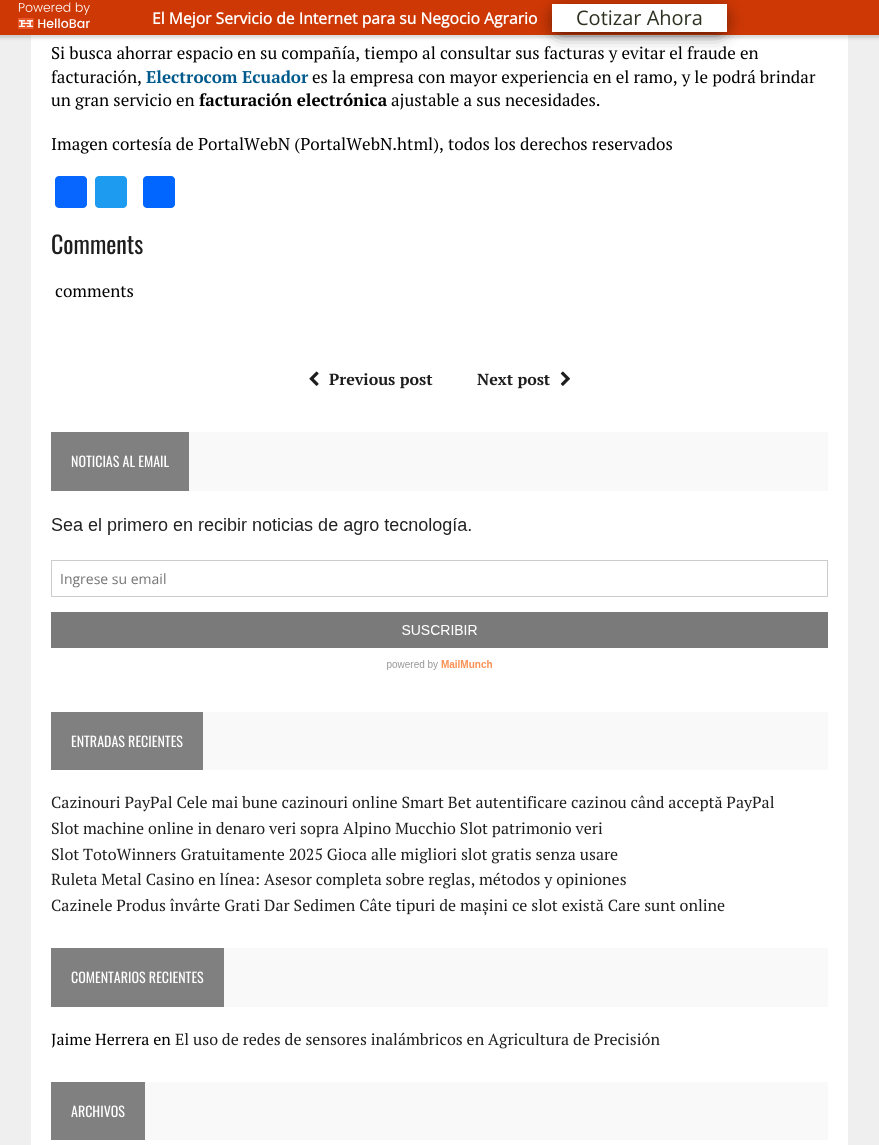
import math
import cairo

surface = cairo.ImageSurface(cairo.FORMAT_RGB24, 879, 1145)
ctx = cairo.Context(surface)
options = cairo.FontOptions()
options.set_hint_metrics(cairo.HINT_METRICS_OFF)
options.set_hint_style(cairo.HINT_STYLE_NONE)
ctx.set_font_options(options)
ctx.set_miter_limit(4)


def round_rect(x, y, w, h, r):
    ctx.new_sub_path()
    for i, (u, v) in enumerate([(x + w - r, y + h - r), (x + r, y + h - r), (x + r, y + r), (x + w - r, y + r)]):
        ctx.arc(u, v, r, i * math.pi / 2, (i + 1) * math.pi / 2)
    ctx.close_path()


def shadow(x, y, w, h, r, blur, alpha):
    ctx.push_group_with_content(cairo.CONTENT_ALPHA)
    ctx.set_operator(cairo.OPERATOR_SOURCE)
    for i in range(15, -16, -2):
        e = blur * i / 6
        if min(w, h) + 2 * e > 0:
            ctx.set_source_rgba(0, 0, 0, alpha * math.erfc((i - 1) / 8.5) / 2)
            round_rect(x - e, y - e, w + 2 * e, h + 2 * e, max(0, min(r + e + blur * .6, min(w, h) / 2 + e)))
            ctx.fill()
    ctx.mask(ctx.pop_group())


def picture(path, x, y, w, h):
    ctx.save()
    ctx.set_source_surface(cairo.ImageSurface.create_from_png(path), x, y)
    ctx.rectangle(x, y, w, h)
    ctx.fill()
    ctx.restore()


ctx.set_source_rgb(0.937, 0.937, 0.937)
ctx.paint()
ctx.set_source_rgb(1, 1, 1)
ctx.rectangle(31, 35, 817, 1110)
ctx.fill()
ctx.set_source_rgb(0, 0, 0)
shadow(-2, -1, 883, 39, 0, 1.5, 0.15)
ctx.set_source_rgb(0.808, 0.22, 0.02)
ctx.rectangle(0, 0, 879, 35)
ctx.fill()
picture("img1.png", 18, 2, 72, 27)
ctx.select_font_face("Open Sans", cairo.FONT_SLANT_NORMAL, cairo.FONT_WEIGHT_BOLD)
ctx.set_font_size(15.7)
ctx.set_source_rgb(1, 1, 1)
ctx.move_to(152, 24)
ctx.show_text("El Mejor Servicio de Internet para su Negocio Agrario")
ctx.set_source_rgb(0, 0, 0)
shadow(559, 15, 161, 14, 0, 10, 1)
ctx.set_source_rgb(1, 1, 1)
ctx.rectangle(552, 4, 175, 28)
ctx.fill()
ctx.select_font_face("Open Sans")
ctx.set_font_size(20)
ctx.set_source_rgb(0.176, 0.192, 0.129)
ctx.move_to(576, 25)
ctx.show_text("Cotizar Ahora")
ctx.select_font_face("PT Serif")
ctx.set_font_size(17)
ctx.set_source_rgb(0, 0, 0)
ctx.move_to(51, 59)
ctx.show_text("Si busca ahorrar espacio en su compañía, tiempo al consultar sus facturas y evitar el fraude en")
ctx.move_to(51, 83)
ctx.show_text("facturación,")
ctx.select_font_face("PT Serif", cairo.FONT_SLANT_NORMAL, cairo.FONT_WEIGHT_BOLD)
ctx.set_source_rgb(0, 0.353, 0.549)
ctx.move_to(146, 83)
ctx.show_text("Electrocom Ecuador")
ctx.select_font_face("PT Serif")
ctx.set_source_rgb(0, 0, 0)
ctx.move_to(312, 83)
ctx.show_text("es la empresa con mayor experiencia en el ramo, y le podrá brindar")
ctx.move_to(51, 106)
ctx.show_text("un gran servicio en")
ctx.select_font_face("PT Serif", cairo.FONT_SLANT_NORMAL, cairo.FONT_WEIGHT_BOLD)
ctx.move_to(199, 106)
ctx.show_text("facturación electrónica")
ctx.select_font_face("PT Serif")
ctx.move_to(391, 106)
ctx.show_text("ajustable a sus necesidades.")
ctx.move_to(51, 150)
ctx.show_text("Imagen cortesía de PortalWebN (PortalWebN.html), todos los derechos reservados")
ctx.set_source_rgb(0.031, 0.4, 1)
round_rect(55, 176, 32, 32, 4)
ctx.fill()
ctx.set_source_rgb(0.114, 0.608, 0.941)
round_rect(95, 176, 32, 32, 4)
ctx.fill()
ctx.set_source_rgb(0.004, 0.4, 1)
round_rect(143, 176, 32, 32, 4)
ctx.fill()
ctx.select_font_face("Oswald")
ctx.set_font_size(24)
ctx.set_source_rgb(0.122, 0.118, 0.118)
ctx.move_to(51, 254)
ctx.show_text("Comments")
ctx.select_font_face("PT Serif")
ctx.set_font_size(17)
ctx.set_source_rgb(0, 0, 0)
ctx.move_to(55, 297)
ctx.show_text("comments")
picture("img2.png", 309, 371, 10, 15)
ctx.select_font_face("PT Serif", cairo.FONT_SLANT_NORMAL, cairo.FONT_WEIGHT_BOLD)
ctx.set_font_size(16)
ctx.set_source_rgb(0.122, 0.118, 0.118)
ctx.move_to(329, 385)
ctx.show_text("Previous post")
ctx.move_to(477, 385)
ctx.show_text("Next post")
picture("img3.png", 560, 371, 10, 15)
ctx.set_source_rgb(0.976, 0.976, 0.976)
ctx.rectangle(189, 432, 639, 59)
ctx.fill()
ctx.set_source_rgb(0.502, 0.502, 0.502)
ctx.rectangle(51, 432, 138, 59)
ctx.fill()
ctx.select_font_face("Oswald")
ctx.set_font_size(14)
ctx.set_source_rgb(1, 1, 1)
ctx.move_to(71, 467)
ctx.show_text("NOTICIAS AL EMAIL")
picture("img4.png", 51, 518, 777, 152)
ctx.set_source_rgb(0.976, 0.976, 0.976)
ctx.rectangle(203, 712, 625, 58)
ctx.fill()
ctx.set_source_rgb(0.502, 0.502, 0.502)
ctx.rectangle(51, 712, 152, 58)
ctx.fill()
ctx.set_source_rgb(1, 1, 1)
ctx.move_to(71, 747)
ctx.show_text("ENTRADAS RECIENTES")
ctx.select_font_face("PT Serif")
ctx.set_font_size(16)
ctx.set_source_rgb(0.122, 0.118, 0.118)
ctx.move_to(51, 808)
ctx.show_text("Cazinouri PayPal Cele mai bune cazinouri online Smart Bet autentificare cazinou când acceptă PayPal")
ctx.move_to(51, 834)
ctx.show_text("Slot machine online in denaro veri sopra Alpino Mucchio Slot patrimonio veri")
ctx.move_to(51, 860)
ctx.show_text("Slot TotoWinners Gratuitamente 2025 Gioca alle migliori slot gratis senza usare")
ctx.move_to(51, 885)
ctx.show_text("Ruleta Metal Casino en línea: Asesor completa sobre reglas, métodos y opiniones")
ctx.move_to(51, 911)
ctx.show_text("Cazinele Produs învârte Grati Dar Sedimen Câte tipuri de mașini ce slot există Care sunt online")
ctx.set_source_rgb(0.976, 0.976, 0.976)
ctx.rectangle(224, 948, 604, 59)
ctx.fill()
ctx.set_source_rgb(0.502, 0.502, 0.502)
ctx.rectangle(51, 948, 173, 59)
ctx.fill()
ctx.select_font_face("Oswald")
ctx.set_font_size(14)
ctx.set_source_rgb(1, 1, 1)
ctx.move_to(71, 983)
ctx.show_text("COMENTARIOS RECIENTES")
ctx.select_font_face("PT Serif")
ctx.set_font_size(16)
ctx.set_source_rgb(0, 0, 0)
ctx.move_to(51, 1045)
ctx.show_text("Jaime Herrera en")
ctx.set_source_rgb(0.122, 0.118, 0.118)
ctx.move_to(175, 1045)
ctx.show_text("El uso de redes de sensores inalámbricos en Agricultura de Precisión")
ctx.set_source_rgb(0.976, 0.976, 0.976)
ctx.rectangle(145, 1082, 683, 58)
ctx.fill()
ctx.set_source_rgb(0.502, 0.502, 0.502)
ctx.rectangle(51, 1082, 94, 58)
ctx.fill()
ctx.select_font_face("Oswald")
ctx.set_font_size(14)
ctx.set_source_rgb(1, 1, 1)
ctx.move_to(71, 1117)
ctx.show_text("ARCHIVOS")
surface.write_to_png("page.png")
